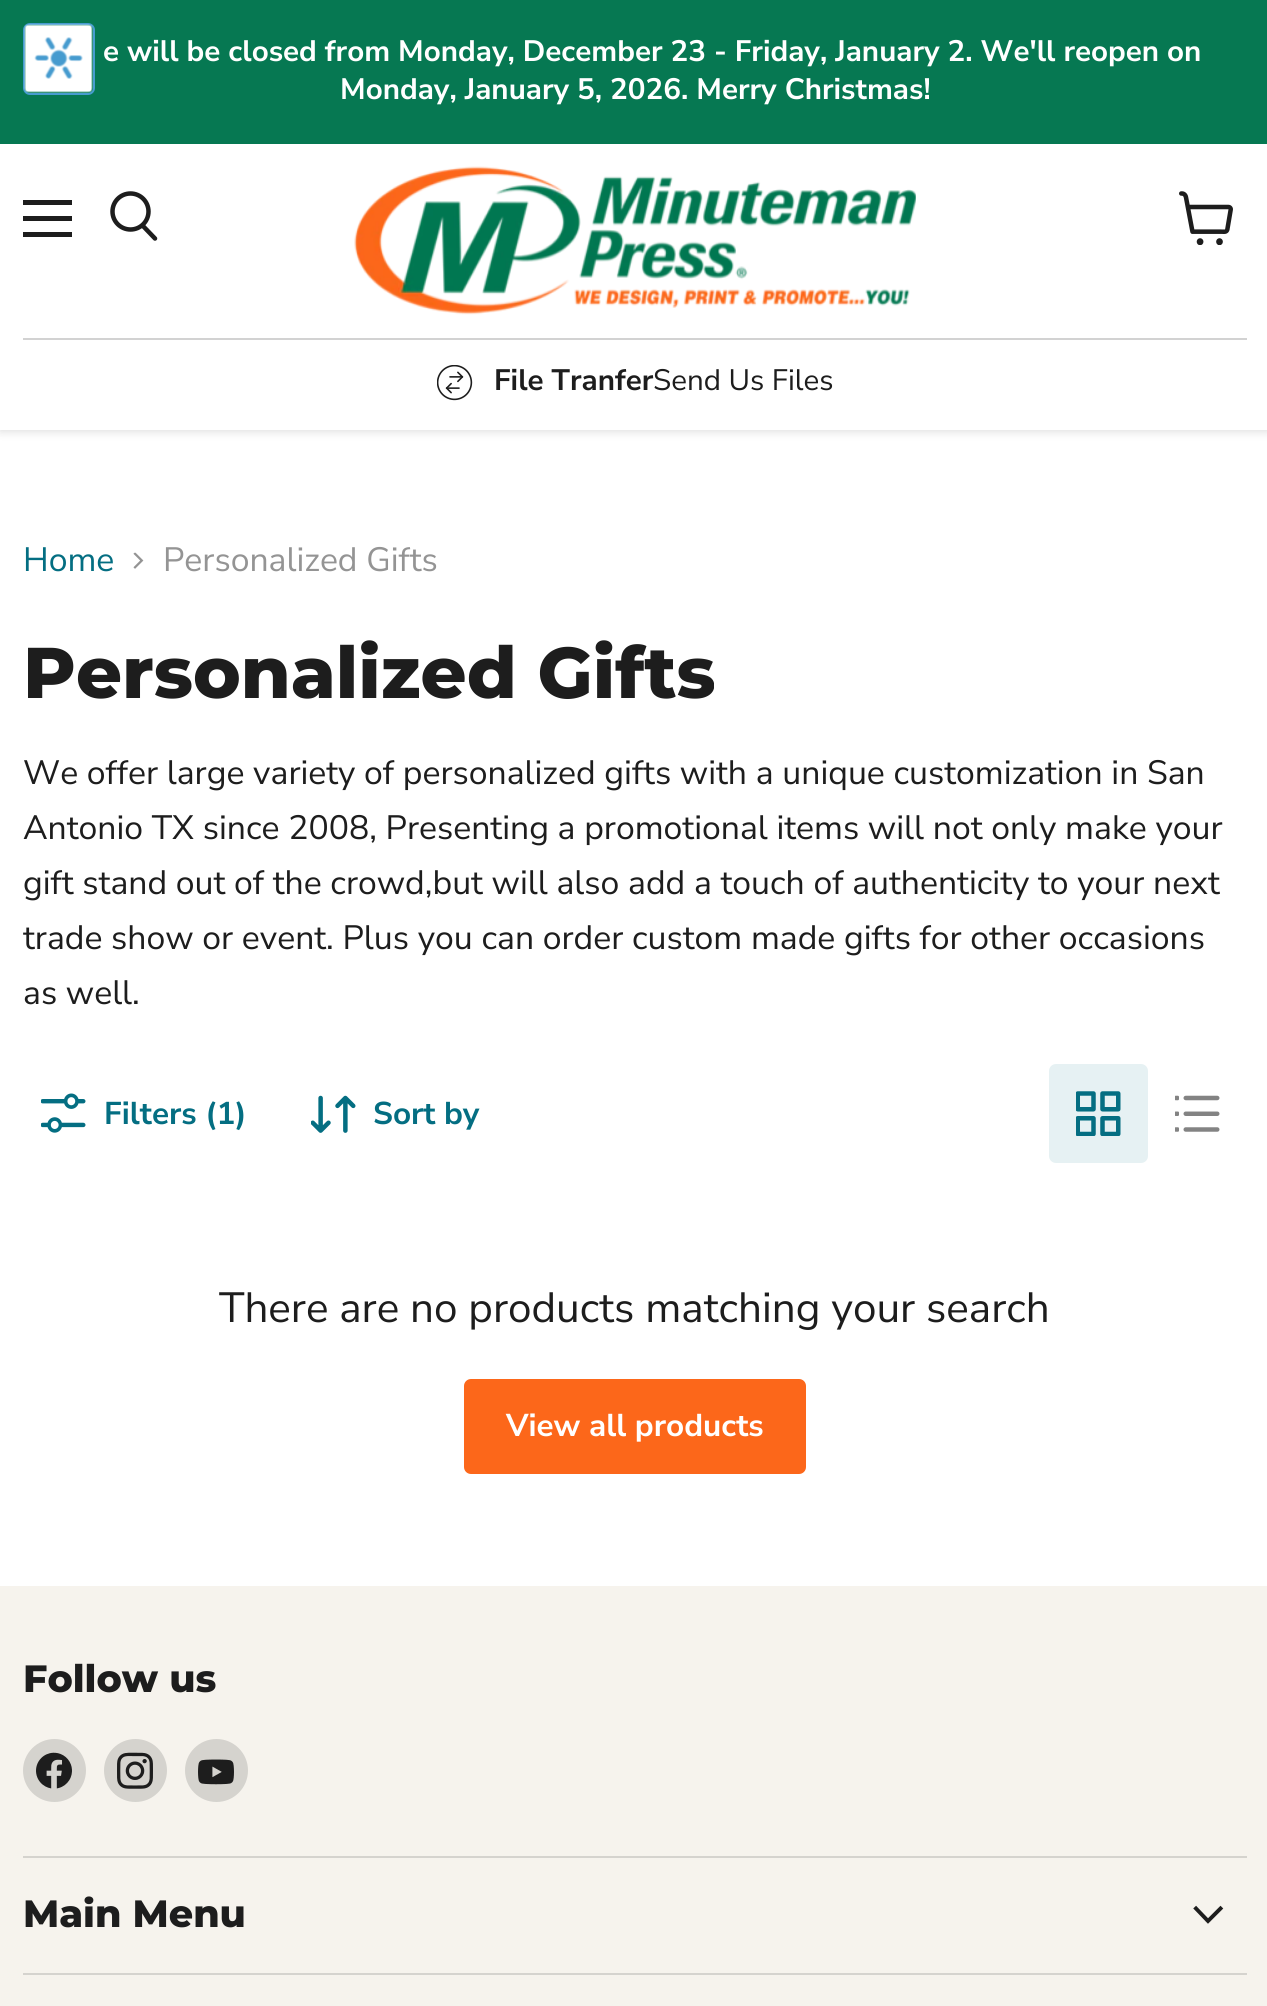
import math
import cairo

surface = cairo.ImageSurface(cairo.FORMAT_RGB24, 1267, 2006)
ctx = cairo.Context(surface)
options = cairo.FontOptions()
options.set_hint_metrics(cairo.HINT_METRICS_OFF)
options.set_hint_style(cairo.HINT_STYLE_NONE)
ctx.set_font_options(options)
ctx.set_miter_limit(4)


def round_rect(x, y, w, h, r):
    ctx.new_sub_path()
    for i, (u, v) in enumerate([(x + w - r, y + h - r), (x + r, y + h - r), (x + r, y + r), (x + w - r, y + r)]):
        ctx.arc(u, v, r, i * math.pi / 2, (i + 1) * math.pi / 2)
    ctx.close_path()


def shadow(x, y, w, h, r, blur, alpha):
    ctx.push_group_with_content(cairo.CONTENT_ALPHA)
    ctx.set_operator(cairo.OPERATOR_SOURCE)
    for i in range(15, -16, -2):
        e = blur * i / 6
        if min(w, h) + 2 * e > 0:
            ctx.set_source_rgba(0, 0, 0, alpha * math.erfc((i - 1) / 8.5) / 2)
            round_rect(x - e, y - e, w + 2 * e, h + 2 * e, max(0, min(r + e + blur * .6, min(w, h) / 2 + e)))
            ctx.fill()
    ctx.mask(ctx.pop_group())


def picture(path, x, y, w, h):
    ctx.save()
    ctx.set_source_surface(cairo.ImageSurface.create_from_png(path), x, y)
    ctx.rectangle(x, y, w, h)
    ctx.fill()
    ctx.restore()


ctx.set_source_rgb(1, 1, 1)
ctx.paint()
ctx.set_source_rgb(0.502, 0.502, 0.502)
shadow(0, 146, 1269, 286, 0, 4.5, 0.25)
ctx.set_source_rgb(0.027, 0.471, 0.322)
ctx.rectangle(0, 0, 1267, 144)
ctx.fill()
round_rect(24, 24, 70, 70, 6)
ctx.set_source_rgb(0.278, 0.612, 0.812)
ctx.stroke()
picture("img1.png", 24, 24, 69, 69)
ctx.select_font_face("Nunito Sans", cairo.FONT_SLANT_NORMAL, cairo.FONT_WEIGHT_BOLD)
ctx.set_font_size(29.55)
ctx.set_source_rgb(1, 1, 1)
ctx.move_to(103, 61)
ctx.show_text("e will be closed from Monday, December 23 - Friday, January 2. We'll reopen on")
ctx.move_to(340, 99)
ctx.show_text("Monday, January 5, 2026. Merry Christmas!")
ctx.rectangle(0, 144, 1267, 286)
ctx.fill()
ctx.set_source_rgb(0.114, 0.114, 0.114)
ctx.rectangle(23, 200, 49, 5)
ctx.fill()
ctx.rectangle(23, 216, 49, 5)
ctx.fill()
ctx.rectangle(23, 232, 49, 5)
ctx.fill()
ctx.new_path()
ctx.move_to(155, 238.5)
ctx.line_to(143, 226)
ctx.set_line_width(4.5)
ctx.set_line_cap(cairo.LINE_CAP_ROUND)
ctx.stroke()
ctx.arc(130.5, 211.5, 18, 0, 2 * math.pi)
ctx.set_line_cap(cairo.LINE_CAP_BUTT)
ctx.stroke()
picture("img2.png", 1179, 191, 54, 54)
picture("img3.png", 354, 166, 562, 149)
ctx.set_source_rgb(0.824, 0.824, 0.824)
ctx.rectangle(23, 338, 1224, 2)
ctx.fill()
picture("img4.png", 437, 365, 36, 36)
ctx.set_source_rgb(0.114, 0.114, 0.114)
ctx.move_to(494, 390)
ctx.show_text("File Tranfer")
ctx.select_font_face("Nunito Sans")
ctx.move_to(653, 390)
ctx.show_text("Send Us Files")
ctx.set_font_size(33.75)
ctx.set_source_rgb(0.016, 0.431, 0.51)
ctx.move_to(23, 571)
ctx.show_text("Home")
picture("img5.png", 133, 552, 11, 17)
ctx.set_source_rgb(0.58, 0.58, 0.58)
ctx.move_to(163, 571)
ctx.show_text("Personalized Gifts")
ctx.select_font_face("Montserrat ExtraBold")
ctx.set_font_size(71.75)
ctx.set_source_rgb(0.114, 0.114, 0.114)
ctx.move_to(23, 698)
ctx.show_text("Personalized Gifts")
ctx.select_font_face("Nunito Sans")
ctx.set_font_size(33.75)
ctx.move_to(23, 784)
ctx.show_text("We offer large variety of personalized gifts with a unique customization in San")
ctx.move_to(23, 839)
ctx.show_text("Antonio TX since 2008, Presenting a promotional items will not only make your")
ctx.move_to(23, 894)
ctx.show_text("gift stand out of the crowd,but will also add a touch of authenticity to your next")
ctx.move_to(23, 949)
ctx.show_text("trade show or event. Plus you can order custom made gifts for other occasions")
ctx.move_to(23, 1004)
ctx.show_text("as well.")
picture("img6.png", 41, 1093, 45, 40)
ctx.select_font_face("Nunito Sans", cairo.FONT_SLANT_NORMAL, cairo.FONT_WEIGHT_BOLD)
ctx.set_font_size(31.5)
ctx.set_source_rgb(0.016, 0.431, 0.51)
ctx.move_to(104, 1124)
ctx.show_text("Filters (1)")
picture("img7.png", 311, 1095, 45, 38)
ctx.move_to(373, 1124)
ctx.show_text("Sort by")
ctx.set_source_rgb(0.902, 0.945, 0.953)
round_rect(1049, 1064, 99, 99, 7)
ctx.fill()
picture("img8.png", 1076, 1091, 45, 45)
picture("img9.png", 1175, 1095, 45, 37)
ctx.select_font_face("Nunito Sans")
ctx.set_font_size(42.2)
ctx.set_source_rgb(0.114, 0.114, 0.114)
ctx.move_to(219, 1322)
ctx.show_text("There are no products matching your search")
ctx.set_source_rgb(0.988, 0.404, 0.102)
round_rect(465, 1380, 340, 93, 6)
ctx.fill_preserve()
ctx.set_line_width(2)
ctx.stroke()
ctx.select_font_face("Nunito Sans", cairo.FONT_SLANT_NORMAL, cairo.FONT_WEIGHT_BOLD)
ctx.set_font_size(31.5)
ctx.set_source_rgb(1, 1, 1)
ctx.move_to(506, 1436)
ctx.show_text("View all products")
ctx.set_source_rgb(0.961, 0.953, 0.929)
ctx.rectangle(0, 1586, 1267, 420)
ctx.fill()
ctx.set_source_rgb(0.835, 0.827, 0.808)
ctx.rectangle(23, 1856, 1224, 2)
ctx.fill()
ctx.select_font_face("Montserrat ExtraBold")
ctx.set_font_size(38)
ctx.set_source_rgb(0.114, 0.114, 0.114)
ctx.move_to(23, 1692)
ctx.show_text("Follow us")
ctx.set_source_rgb(0.835, 0.827, 0.808)
ctx.new_path()
ctx.arc(54.5, 1770.5, 31.5, 0, 2 * math.pi)
ctx.fill()
picture("img10.png", 36, 1752, 36, 37)
ctx.arc(135.5, 1770.5, 31.5, 0, 2 * math.pi)
ctx.fill()
picture("img11.png", 117, 1752, 36, 37)
ctx.arc(216.5, 1770.5, 31.5, 0, 2 * math.pi)
ctx.fill()
picture("img12.png", 198, 1759, 36, 26)
ctx.rectangle(23, 1973, 1224, 2)
ctx.fill()
ctx.set_source_rgb(0.114, 0.114, 0.114)
ctx.move_to(23, 1927)
ctx.show_text("Main Menu")
ctx.new_path()
ctx.move_to(1208, 1921)
ctx.line_to(1220.5, 1908.5)
ctx.move_to(1208, 1921)
ctx.line_to(1196, 1908.5)
ctx.set_line_width(3.9)
ctx.set_line_cap(cairo.LINE_CAP_SQUARE)
ctx.stroke()
surface.write_to_png("page.png")
